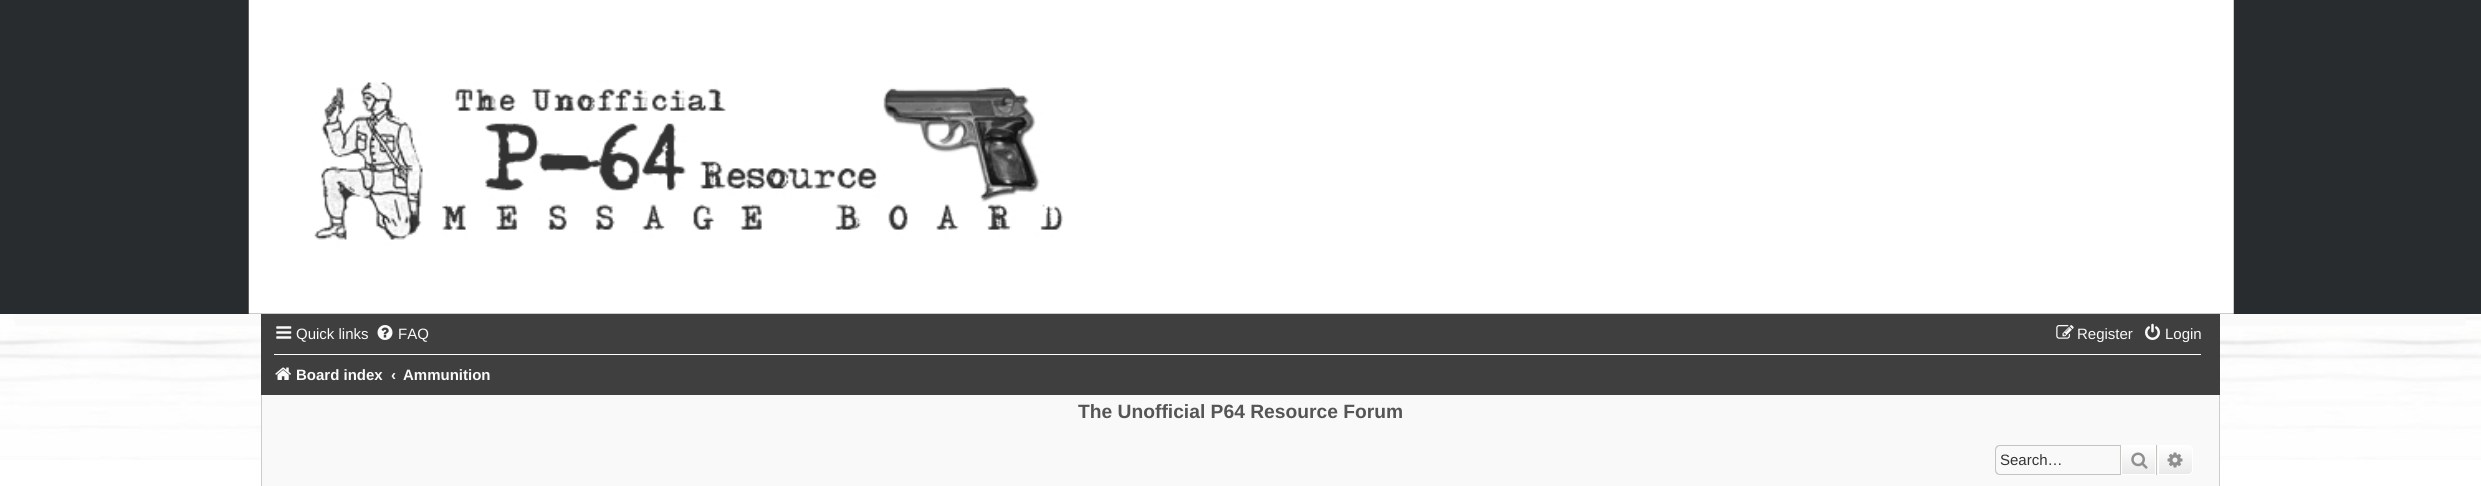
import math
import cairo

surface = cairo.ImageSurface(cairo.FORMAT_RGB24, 2481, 486)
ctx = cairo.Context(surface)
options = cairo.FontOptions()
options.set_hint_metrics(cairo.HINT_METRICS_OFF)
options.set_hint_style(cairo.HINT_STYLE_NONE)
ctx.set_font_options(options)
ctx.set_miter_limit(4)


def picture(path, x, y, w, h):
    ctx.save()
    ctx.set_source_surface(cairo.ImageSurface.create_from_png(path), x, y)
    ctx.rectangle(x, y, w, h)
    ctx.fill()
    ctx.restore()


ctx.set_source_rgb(1, 1, 1)
ctx.paint()
picture("img1.png", 0, 314, 2481, 146)
ctx.set_source_rgb(0.161, 0.173, 0.184)
ctx.rectangle(0, 0, 2481, 314)
ctx.fill()
picture("img2.png", 248, 0, 1986, 314)
ctx.set_source_rgb(0.98, 0.98, 0.98)
ctx.rectangle(15, 314, 2451, 12)
ctx.fill()
ctx.set_source_rgb(0.976, 0.976, 0.976)
ctx.rectangle(262, 395, 1957, 91)
ctx.fill()
ctx.rectangle(261.5, 348.5, 1958, 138)
ctx.set_source_rgb(0.8, 0.8, 0.8)
ctx.set_line_width(1)
ctx.stroke()
ctx.set_source_rgb(0.247, 0.247, 0.247)
ctx.rectangle(261, 314, 1959, 81)
ctx.fill()
picture("img3.png", 276, 326, 16, 13)
ctx.select_font_face("Liberation Sans")
ctx.set_font_size(15)
ctx.set_source_rgb(0.98, 0.98, 0.98)
ctx.move_to(296, 339)
ctx.show_text("Quick links")
picture("img4.png", 377, 325, 16, 15)
ctx.move_to(398, 339)
ctx.show_text("FAQ")
picture("img5.png", 2056, 325, 18, 14)
ctx.move_to(2077, 339)
ctx.show_text("Register")
picture("img6.png", 2145, 323, 15, 17)
ctx.move_to(2165, 339)
ctx.show_text("Login")
ctx.set_source_rgb(1, 1, 1)
ctx.rectangle(274, 354, 1927, 1)
ctx.fill()
picture("img7.png", 275, 367, 16, 13)
ctx.select_font_face("Liberation Sans", cairo.FONT_SLANT_NORMAL, cairo.FONT_WEIGHT_BOLD)
ctx.set_source_rgb(0.98, 0.98, 0.98)
ctx.move_to(296, 380)
ctx.show_text("Board index")
ctx.move_to(391, 380)
ctx.show_text("‹")
ctx.move_to(403, 380)
ctx.show_text("Ammunition")
ctx.set_font_size(19.25)
ctx.set_source_rgb(0.333, 0.333, 0.333)
ctx.move_to(1078, 418)
ctx.show_text("The Unofficial P64 Resource Forum")
ctx.set_source_rgb(0.78, 0.765, 0.749)
ctx.set_fill_rule(cairo.FILL_RULE_EVEN_ODD)
ctx.new_path()
ctx.move_to(2000, 445)
ctx.line_to(2120, 445)
ctx.line_to(2120, 475)
ctx.line_to(2000, 475)
ctx.curve_to(1997, 475, 1995, 473, 1995, 470)
ctx.line_to(1995, 450)
ctx.curve_to(1995, 447, 1997, 445, 2000, 445)
ctx.close_path()
ctx.move_to(2000, 446)
ctx.line_to(2120, 446)
ctx.line_to(2120, 474)
ctx.line_to(2000, 474)
ctx.curve_to(1998, 474, 1996, 472, 1996, 470)
ctx.line_to(1996, 450)
ctx.curve_to(1996, 448, 1998, 446, 2000, 446)
ctx.close_path()
ctx.fill()
ctx.select_font_face("Liberation Sans")
ctx.set_font_size(15)
ctx.set_source_rgb(0.2, 0.2, 0.2)
ctx.move_to(2000, 465)
ctx.show_text("Search…")
gradient = cairo.LinearGradient(2139, 445, 2139, 475)
gradient.add_color_stop_rgba(0, 1, 1, 1, 1)
gradient.add_color_stop_rgba(1, 0.914, 0.914, 0.914, 1)
ctx.set_source(gradient)
ctx.rectangle(2122, 446, 33, 28)
ctx.fill()
ctx.rectangle(2121.5, 445.5, 34, 29)
ctx.set_source_rgb(1, 1, 1)
ctx.stroke()
ctx.set_source_rgb(0.78, 0.765, 0.749)
ctx.rectangle(2156, 445, 1, 30)
ctx.fill()
ctx.rectangle(2120, 445, 1, 30)
ctx.fill()
picture("img8.png", 2131, 452, 17, 17)
gradient = cairo.LinearGradient(2175, 445, 2175, 475)
gradient.add_color_stop_rgba(0, 1, 1, 1, 1)
gradient.add_color_stop_rgba(1, 0.914, 0.914, 0.914, 1)
ctx.set_source(gradient)
ctx.new_path()
ctx.move_to(2158.5, 445.5)
ctx.line_to(2188, 445.5)
ctx.curve_to(2190.5, 445.5, 2192.5, 447.5, 2192.5, 450)
ctx.line_to(2192.5, 470)
ctx.curve_to(2192.5, 472.5, 2190.5, 474.5, 2188, 474.5)
ctx.line_to(2158.5, 474.5)
ctx.close_path()
ctx.fill_preserve()
ctx.set_source_rgb(1, 1, 1)
ctx.stroke()
picture("img9.png", 2167, 452, 16, 16)
surface.write_to_png("page.png")
